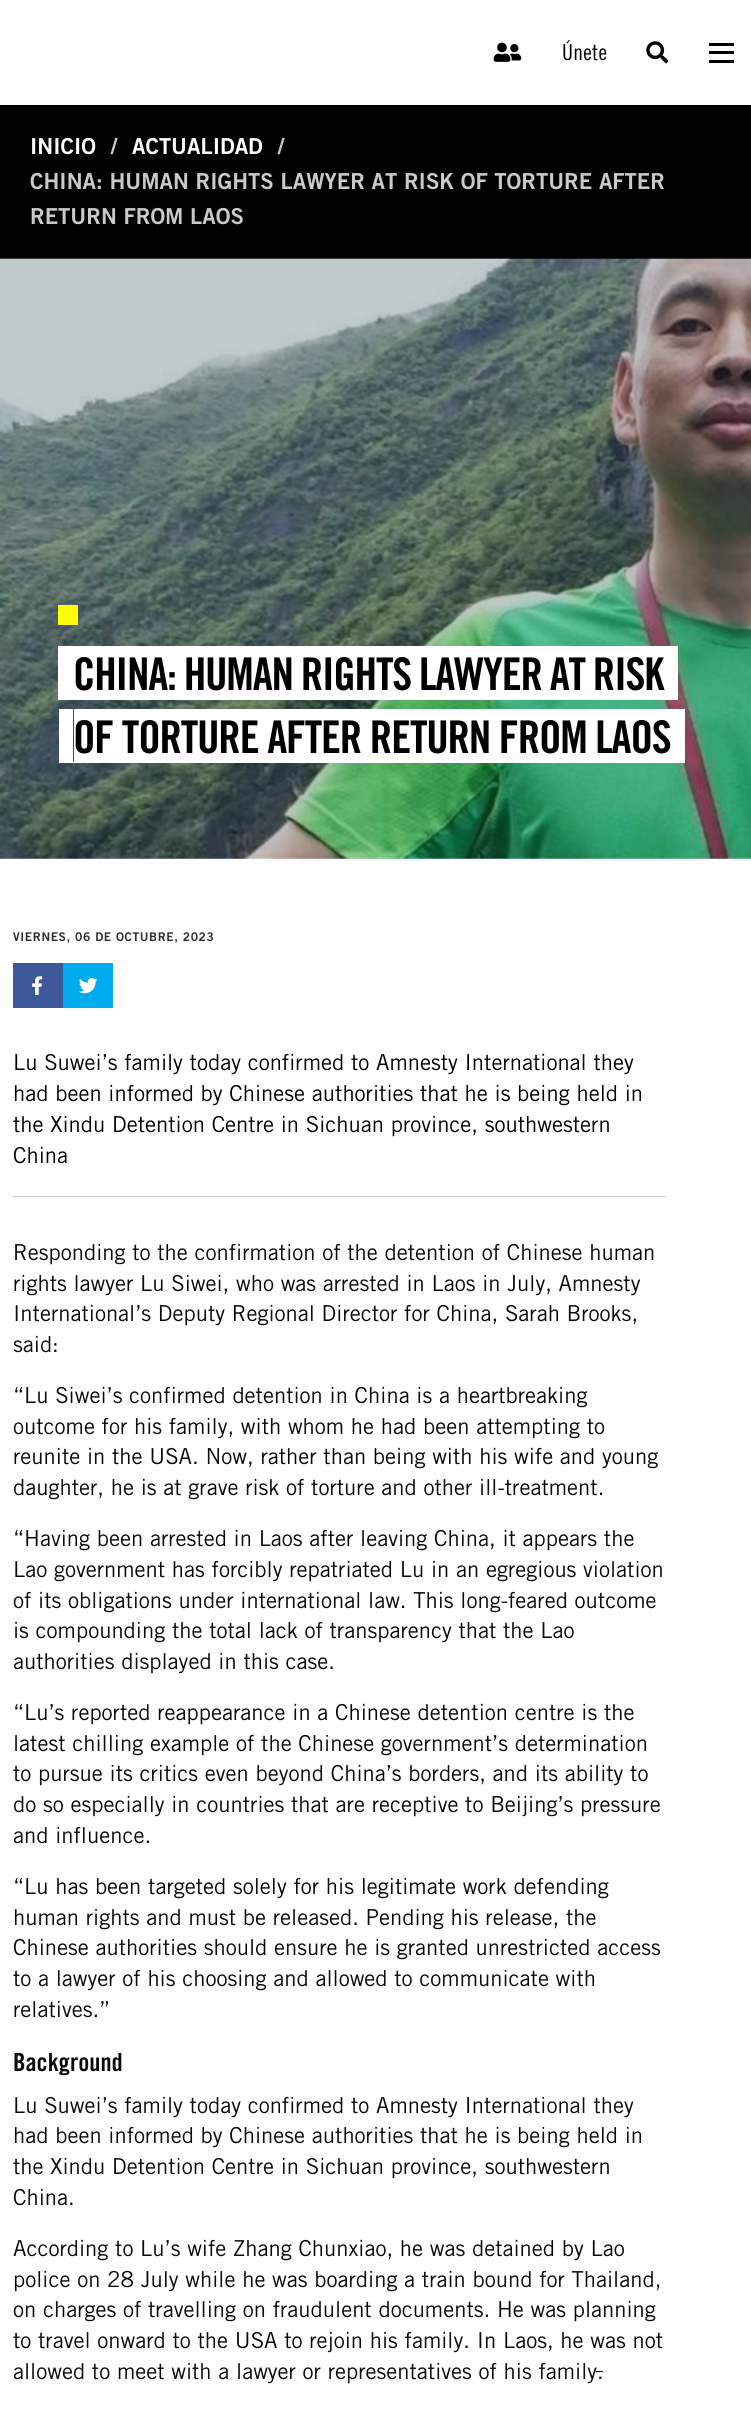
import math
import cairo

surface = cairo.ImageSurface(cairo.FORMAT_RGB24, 751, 2418)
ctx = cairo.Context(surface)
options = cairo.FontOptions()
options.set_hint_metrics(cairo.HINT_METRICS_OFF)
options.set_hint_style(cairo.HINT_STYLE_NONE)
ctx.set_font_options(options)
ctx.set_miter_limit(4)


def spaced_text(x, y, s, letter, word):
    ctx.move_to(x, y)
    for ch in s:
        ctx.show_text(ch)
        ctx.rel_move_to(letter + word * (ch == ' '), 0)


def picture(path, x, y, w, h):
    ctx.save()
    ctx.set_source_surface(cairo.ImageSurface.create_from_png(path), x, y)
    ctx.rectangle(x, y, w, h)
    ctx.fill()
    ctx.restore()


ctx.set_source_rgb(1, 1, 1)
ctx.paint()
picture("img1.png", 493, 42, 29, 20)
ctx.select_font_face("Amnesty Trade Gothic")
ctx.set_font_size(22)
ctx.set_source_rgb(0, 0, 0)
spaced_text(562, 60, "Únete", 0.25, 0)
picture("img2.png", 646, 41, 23, 23)
ctx.rectangle(709, 60, 25, 3)
ctx.fill()
ctx.rectangle(709, 51, 25, 3)
ctx.fill()
ctx.rectangle(709, 43, 25, 3)
ctx.fill()
ctx.rectangle(0, 105, 751, 154)
ctx.fill()
ctx.select_font_face("Amnesty Trade Gothic", cairo.FONT_SLANT_NORMAL, cairo.FONT_WEIGHT_BOLD)
ctx.set_source_rgb(1, 1, 1)
ctx.move_to(30, 154)
ctx.show_text("INICIO")
ctx.set_source_rgb(0.792, 0.792, 0.792)
ctx.move_to(111, 154)
ctx.show_text("/")
ctx.set_source_rgb(1, 1, 1)
ctx.move_to(132, 154)
ctx.show_text("ACTUALIDAD")
ctx.set_source_rgb(0.792, 0.792, 0.792)
ctx.move_to(278, 154)
ctx.show_text("/")
ctx.move_to(30, 189)
ctx.show_text("CHINA: HUMAN RIGHTS LAWYER AT RISK OF TORTURE AFTER")
ctx.move_to(30, 224)
ctx.show_text("RETURN FROM LAOS")
picture("img3.png", 0, 258, 751, 601)
ctx.set_source_rgb(1, 1, 0)
ctx.rectangle(58, 605, 20, 20)
ctx.fill()
ctx.set_source_rgb(1, 1, 1)
ctx.new_path()
ctx.move_to(85, 646)
ctx.line_to(663, 646)
ctx.line_to(663, 700)
ctx.line_to(678, 700)
ctx.line_to(678, 646)
ctx.close_path()
ctx.fill()
ctx.rectangle(71, 646, 592, 54)
ctx.fill()
ctx.select_font_face("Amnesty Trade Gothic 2", cairo.FONT_SLANT_NORMAL, cairo.FONT_WEIGHT_BOLD)
ctx.set_font_size(45.1)
ctx.set_source_rgb(0, 0, 0)
spaced_text(73, 690, "CHINA: HUMAN RIGHTS LAWYER AT RISK", -1.25, -0.75)
ctx.save()
ctx.rectangle(58, 643, 636, 126)
ctx.clip()
ctx.set_source_rgb(1, 1, 1)
ctx.new_path()
ctx.move_to(56, 646)
ctx.line_to(56, 700)
ctx.line_to(71, 700)
ctx.line_to(71, 646)
ctx.line_to(649, 646)
ctx.close_path()
ctx.fill()
ctx.restore()
ctx.set_source_rgb(1, 1, 1)
ctx.new_path()
ctx.move_to(59, 709)
ctx.line_to(59, 763)
ctx.line_to(656, 763)
ctx.line_to(656, 762)
ctx.line_to(73, 762)
ctx.line_to(73, 709)
ctx.close_path()
ctx.fill()
ctx.new_path()
ctx.move_to(88, 762)
ctx.line_to(88, 763)
ctx.line_to(685, 763)
ctx.line_to(685, 709)
ctx.line_to(671, 709)
ctx.line_to(671, 762)
ctx.close_path()
ctx.fill()
ctx.rectangle(74, 709, 597, 53)
ctx.fill()
ctx.set_source_rgb(0, 0, 0)
spaced_text(73, 753, "OF TORTURE AFTER RETURN FROM LAOS", -1.25, 0)
ctx.select_font_face("Amnesty Trade Gothic", cairo.FONT_SLANT_NORMAL, cairo.FONT_WEIGHT_BOLD)
ctx.set_font_size(12)
ctx.set_source_rgb(0.18, 0.18, 0.18)
spaced_text(13, 941, "VIERNES, 06 DE OCTUBRE, 2023", 0.6, 0)
ctx.set_source_rgb(0.231, 0.349, 0.596)
ctx.rectangle(13, 963, 50, 45)
ctx.fill()
picture("img4.png", 32, 976, 11, 19)
ctx.set_source_rgb(0, 0.675, 0.929)
ctx.rectangle(63, 963, 50, 45)
ctx.fill()
picture("img5.png", 79, 978, 19, 16)
ctx.select_font_face("Amnesty Trade Gothic 2")
ctx.set_font_size(22)
ctx.set_source_rgb(0, 0, 0)
ctx.move_to(13, 1070)
ctx.show_text("Lu Suwei’s family today confirmed to Amnesty International they")
ctx.move_to(13, 1101)
ctx.show_text("had been informed by Chinese authorities that he is being held in")
ctx.move_to(13, 1132)
ctx.show_text("the Xindu Detention Centre in Sichuan province, southwestern")
ctx.move_to(13, 1163)
ctx.show_text("China")
ctx.set_source_rgb(0.792, 0.792, 0.792)
ctx.rectangle(13, 1196, 653, 1)
ctx.fill()
ctx.set_source_rgb(0.039, 0.039, 0.039)
ctx.move_to(13, 1260)
ctx.show_text("Responding to the confirmation of the detention of Chinese human")
ctx.move_to(13, 1291)
ctx.show_text("rights lawyer Lu Siwei, who was arrested in Laos in July, Amnesty")
ctx.move_to(13, 1321)
ctx.show_text("International’s Deputy Regional Director for China, Sarah Brooks,")
ctx.move_to(13, 1352)
ctx.show_text("said:")
ctx.move_to(13, 1403)
ctx.show_text("“Lu Siwei’s confirmed detention in China is a heartbreaking")
ctx.move_to(13, 1434)
ctx.show_text("outcome for his family, with whom he had been attempting to")
ctx.move_to(13, 1464)
ctx.show_text("reunite in the USA. Now, rather than being with his wife and young")
ctx.move_to(13, 1495)
ctx.show_text("daughter, he is at grave risk of torture and other ill-treatment.")
ctx.move_to(13, 1546)
ctx.show_text("“Having been arrested in Laos after leaving China, it appears the")
ctx.move_to(13, 1577)
ctx.show_text("Lao government has forcibly repatriated Lu in an egregious violation")
ctx.move_to(13, 1608)
ctx.show_text("of its obligations under international law. This long-feared outcome")
ctx.move_to(13, 1638)
ctx.show_text("is compounding the total lack of transparency that the Lao")
ctx.move_to(13, 1669)
ctx.show_text("authorities displayed in this case.")
ctx.move_to(13, 1720)
ctx.show_text("“Lu’s reported reappearance in a Chinese detention centre is the")
ctx.move_to(13, 1751)
ctx.show_text("latest chilling example of the Chinese government’s determination")
ctx.move_to(13, 1781)
ctx.show_text("to pursue its critics even beyond China’s borders, and its ability to")
ctx.move_to(13, 1812)
ctx.show_text("do so especially in countries that are receptive to Beijing’s pressure")
ctx.move_to(13, 1843)
ctx.show_text("and influence.")
ctx.move_to(13, 1894)
ctx.show_text("“Lu has been targeted solely for his legitimate work defending")
ctx.move_to(13, 1925)
ctx.show_text("human rights and must be released. Pending his release, the")
ctx.move_to(13, 1955)
ctx.show_text("Chinese authorities should ensure he is granted unrestricted access")
ctx.move_to(13, 1986)
ctx.show_text("to a lawyer of his choosing and allowed to communicate with")
ctx.move_to(13, 2017)
ctx.show_text("relatives.”")
ctx.select_font_face("Amnesty Trade Gothic 2", cairo.FONT_SLANT_NORMAL, cairo.FONT_WEIGHT_BOLD)
ctx.set_font_size(25)
ctx.move_to(13, 2071)
ctx.show_text("Background")
ctx.select_font_face("Amnesty Trade Gothic 2")
ctx.set_font_size(22)
ctx.move_to(13, 2113)
ctx.show_text("Lu Suwei’s family today confirmed to Amnesty International they")
ctx.move_to(13, 2143)
ctx.show_text("had been informed by Chinese authorities that he is being held in")
ctx.move_to(13, 2174)
ctx.show_text("the Xindu Detention Centre in Sichuan province, southwestern")
ctx.move_to(13, 2205)
ctx.show_text("China.")
ctx.move_to(13, 2256)
ctx.show_text("According to Lu’s wife Zhang Chunxiao, he was detained by Lao")
ctx.move_to(13, 2287)
ctx.show_text("police on 28 July while he was boarding a train bound for Thailand,")
ctx.move_to(13, 2317)
ctx.show_text("on charges of travelling on fraudulent documents. He was planning")
ctx.move_to(13, 2348)
ctx.show_text("to travel onward to the USA to rejoin his family. In Laos, he was not")
ctx.move_to(13, 2379)
ctx.show_text("allowed to meet with a lawyer or representatives of his family.")
ctx.rectangle(596, 2371, 7, 1)
ctx.fill()
surface.write_to_png("page.png")
